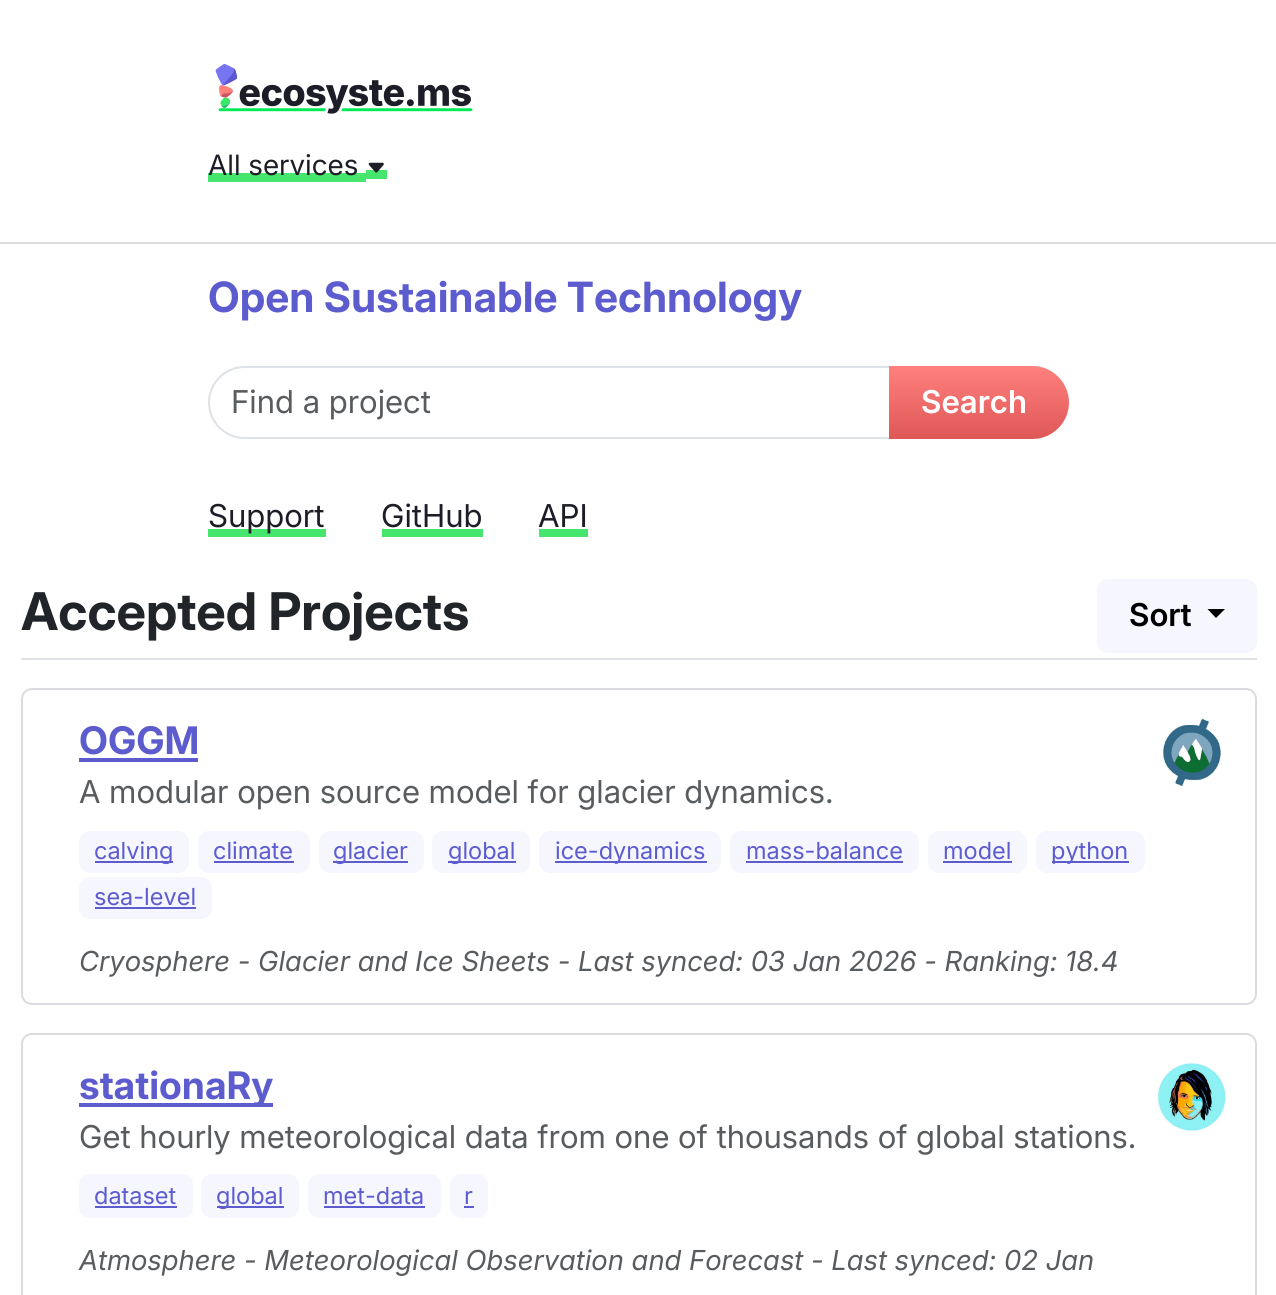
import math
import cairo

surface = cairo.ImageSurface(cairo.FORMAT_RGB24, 1276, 1295)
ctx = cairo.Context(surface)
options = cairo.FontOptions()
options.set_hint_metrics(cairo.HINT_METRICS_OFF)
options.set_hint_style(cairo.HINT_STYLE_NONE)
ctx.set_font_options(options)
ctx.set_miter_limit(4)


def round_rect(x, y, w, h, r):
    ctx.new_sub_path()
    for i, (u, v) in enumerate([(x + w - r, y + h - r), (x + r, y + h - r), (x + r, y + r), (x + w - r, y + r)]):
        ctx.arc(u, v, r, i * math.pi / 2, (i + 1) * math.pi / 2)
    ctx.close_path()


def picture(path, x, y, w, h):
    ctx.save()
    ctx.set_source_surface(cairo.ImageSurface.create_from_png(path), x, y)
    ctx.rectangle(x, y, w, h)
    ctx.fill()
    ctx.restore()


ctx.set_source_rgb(1, 1, 1)
ctx.paint()
picture("img1.png", 215, 63, 258, 51)
ctx.set_source_rgb(0.271, 0.898, 0.431)
ctx.rectangle(208, 173, 158, 9)
ctx.fill()
ctx.rectangle(366, 170, 21, 9)
ctx.fill()
ctx.select_font_face("Inter")
ctx.set_font_size(28)
ctx.set_source_rgb(0.114, 0.114, 0.157)
ctx.move_to(208, 175)
ctx.show_text("All services")
picture("img2.png", 368, 162, 16, 11)
ctx.set_source_rgb(0.863, 0.863, 0.878)
ctx.rectangle(0, 242, 1276, 2)
ctx.fill()
ctx.select_font_face("Inter", cairo.FONT_SLANT_NORMAL, cairo.FONT_WEIGHT_BOLD)
ctx.set_font_size(41.75)
ctx.set_source_rgb(0.361, 0.361, 0.812)
ctx.move_to(208, 312)
ctx.show_text("Open Sustainable Technology")
ctx.new_path()
ctx.move_to(244.5, 367)
ctx.line_to(890, 367)
ctx.line_to(890, 438)
ctx.line_to(244.5, 438)
ctx.curve_to(225, 438, 209, 422, 209, 402.5)
ctx.curve_to(209, 383, 225, 367, 244.5, 367)
ctx.close_path()
ctx.set_source_rgb(0.871, 0.886, 0.902)
ctx.stroke()
ctx.select_font_face("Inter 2")
ctx.set_font_size(31.5)
ctx.set_source_rgb(0.349, 0.361, 0.373)
ctx.move_to(231, 413)
ctx.show_text("Find a project")
gradient = cairo.LinearGradient(979, 366, 979, 439)
gradient.add_color_stop_rgba(0, 1, 0.502, 0.49, 1)
gradient.add_color_stop_rgba(1, 0.871, 0.345, 0.345, 1)
ctx.set_source(gradient)
ctx.new_path()
ctx.move_to(889, 366)
ctx.line_to(1032.5, 366)
ctx.curve_to(1052.5, 366, 1069, 382.5, 1069, 402.5)
ctx.curve_to(1069, 422.5, 1052.5, 439, 1032.5, 439)
ctx.line_to(889, 439)
ctx.close_path()
ctx.fill()
ctx.select_font_face("Inter SemiBold")
ctx.set_source_rgb(1, 1, 1)
ctx.move_to(921, 413)
ctx.show_text("Search")
ctx.set_source_rgb(0.271, 0.898, 0.431)
ctx.rectangle(208, 529, 118, 8)
ctx.fill()
ctx.select_font_face("Inter 2")
ctx.set_source_rgb(0.114, 0.114, 0.157)
ctx.move_to(208, 527)
ctx.show_text("Support")
ctx.set_source_rgb(0.271, 0.898, 0.431)
ctx.rectangle(382, 529, 101, 8)
ctx.fill()
ctx.set_source_rgb(0.114, 0.114, 0.157)
ctx.move_to(381, 527)
ctx.show_text("GitHub")
ctx.set_source_rgb(0.271, 0.898, 0.431)
ctx.rectangle(539, 529, 49, 8)
ctx.fill()
ctx.set_source_rgb(0.114, 0.114, 0.157)
ctx.move_to(538, 527)
ctx.show_text("API")
ctx.set_source_rgb(0.871, 0.886, 0.902)
ctx.rectangle(21, 658, 1236, 2)
ctx.fill()
ctx.select_font_face("Inter 2", cairo.FONT_SLANT_NORMAL, cairo.FONT_WEIGHT_BOLD)
ctx.set_font_size(52)
ctx.set_source_rgb(0.129, 0.145, 0.161)
ctx.move_to(21, 630)
ctx.show_text("Accepted Projects")
ctx.set_source_rgb(0.961, 0.961, 1)
round_rect(1097, 579, 160, 74, 11)
ctx.fill()
ctx.select_font_face("Inter SemiBold")
ctx.set_font_size(31.5)
ctx.set_source_rgb(0, 0, 0)
ctx.move_to(1129, 626)
ctx.show_text("Sort")
ctx.new_path()
ctx.move_to(1207.5, 609)
ctx.line_to(1225, 609)
ctx.line_to(1216, 618)
ctx.close_path()
ctx.fill()
round_rect(22, 689, 1234, 315, 10)
ctx.set_source_rgb(0.863, 0.863, 0.878)
ctx.stroke()
ctx.select_font_face("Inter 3", cairo.FONT_SLANT_NORMAL, cairo.FONT_WEIGHT_BOLD)
ctx.set_font_size(38)
ctx.set_source_rgb(0.361, 0.361, 0.812)
ctx.move_to(79, 754)
ctx.show_text("OGGM")
ctx.rectangle(79, 758, 119, 4)
ctx.fill()
ctx.select_font_face("Inter 2")
ctx.set_font_size(31.5)
ctx.set_source_rgb(0.349, 0.361, 0.373)
ctx.move_to(79, 803)
ctx.show_text("A modular open source model for glacier dynamics.")
ctx.set_source_rgb(0.961, 0.961, 1)
round_rect(79, 831, 110, 42, 11)
ctx.fill()
ctx.set_source_rgb(0.361, 0.361, 0.812)
ctx.rectangle(95, 861, 78, 2)
ctx.fill()
ctx.select_font_face("Inter 3")
ctx.set_font_size(23.5)
ctx.move_to(94, 859)
ctx.show_text("calving")
ctx.set_source_rgb(0.961, 0.961, 1)
round_rect(198, 831, 112, 42, 11)
ctx.fill()
ctx.set_source_rgb(0.361, 0.361, 0.812)
ctx.move_to(213, 859)
ctx.show_text("climate")
ctx.rectangle(214, 861, 80, 2)
ctx.fill()
ctx.set_source_rgb(0.961, 0.961, 1)
round_rect(319, 831, 105, 42, 11)
ctx.fill()
ctx.set_source_rgb(0.361, 0.361, 0.812)
ctx.rectangle(333, 861, 75, 2)
ctx.fill()
ctx.move_to(333, 859)
ctx.show_text("glacier")
ctx.set_source_rgb(0.961, 0.961, 1)
round_rect(432, 831, 98, 42, 11)
ctx.fill()
ctx.set_source_rgb(0.361, 0.361, 0.812)
ctx.rectangle(448, 861, 68, 2)
ctx.fill()
ctx.move_to(448, 859)
ctx.show_text("global")
ctx.set_source_rgb(0.961, 0.961, 1)
round_rect(539, 831, 182, 42, 11)
ctx.fill()
ctx.set_source_rgb(0.361, 0.361, 0.812)
ctx.rectangle(555, 861, 152, 2)
ctx.fill()
ctx.move_to(555, 859)
ctx.show_text("ice-dynamics")
ctx.set_source_rgb(0.961, 0.961, 1)
round_rect(730, 831, 189, 42, 11)
ctx.fill()
ctx.set_source_rgb(0.361, 0.361, 0.812)
ctx.move_to(746, 859)
ctx.show_text("mass-balance")
ctx.rectangle(746, 861, 157, 2)
ctx.fill()
ctx.set_source_rgb(0.961, 0.961, 1)
round_rect(928, 831, 99, 42, 11)
ctx.fill()
ctx.set_source_rgb(0.361, 0.361, 0.812)
ctx.move_to(943, 859)
ctx.show_text("model")
ctx.rectangle(943, 861, 69, 2)
ctx.fill()
ctx.set_source_rgb(0.961, 0.961, 1)
round_rect(1036, 831, 109, 42, 11)
ctx.fill()
ctx.set_source_rgb(0.361, 0.361, 0.812)
ctx.rectangle(1052, 861, 77, 2)
ctx.fill()
ctx.move_to(1051, 859)
ctx.show_text("python")
ctx.set_source_rgb(0.961, 0.961, 1)
round_rect(79, 877, 133, 42, 11)
ctx.fill()
ctx.set_source_rgb(0.361, 0.361, 0.812)
ctx.move_to(94, 905)
ctx.show_text("sea-level")
ctx.rectangle(95, 907, 101, 2)
ctx.fill()
ctx.select_font_face("Inter", cairo.FONT_SLANT_ITALIC)
ctx.set_font_size(27.55)
ctx.set_source_rgb(0.349, 0.361, 0.373)
ctx.move_to(79, 971)
ctx.show_text("Cryosphere - Glacier and Ice Sheets - Last synced: 03 Jan 2026 - Ranking: 18.4")
picture("img3.png", 1163, 718, 58, 69)
round_rect(22, 1034, 1234, 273, 10)
ctx.set_source_rgb(0.863, 0.863, 0.878)
ctx.stroke()
ctx.set_source_rgb(0.361, 0.361, 0.812)
ctx.rectangle(79, 1103, 194, 4)
ctx.fill()
ctx.select_font_face("Inter 3", cairo.FONT_SLANT_NORMAL, cairo.FONT_WEIGHT_BOLD)
ctx.set_font_size(38)
ctx.move_to(79, 1099)
ctx.show_text("stationaRy")
ctx.select_font_face("Inter 2")
ctx.set_font_size(31.5)
ctx.set_source_rgb(0.349, 0.361, 0.373)
ctx.move_to(79, 1148)
ctx.show_text("Get hourly meteorological data from one of thousands of global stations.")
ctx.set_source_rgb(0.961, 0.961, 1)
round_rect(79, 1174, 114, 44, 11)
ctx.fill()
ctx.select_font_face("Inter 3")
ctx.set_font_size(23.5)
ctx.set_source_rgb(0.361, 0.361, 0.812)
ctx.move_to(94, 1204)
ctx.show_text("dataset")
ctx.rectangle(95, 1206, 82, 2)
ctx.fill()
ctx.set_source_rgb(0.961, 0.961, 1)
round_rect(201, 1174, 98, 44, 11)
ctx.fill()
ctx.set_source_rgb(0.361, 0.361, 0.812)
ctx.rectangle(217, 1206, 67, 2)
ctx.fill()
ctx.move_to(216, 1204)
ctx.show_text("global")
ctx.set_source_rgb(0.961, 0.961, 1)
round_rect(308, 1174, 133, 44, 11)
ctx.fill()
ctx.set_source_rgb(0.361, 0.361, 0.812)
ctx.move_to(323, 1204)
ctx.show_text("met-data")
ctx.rectangle(324, 1206, 101, 2)
ctx.fill()
ctx.set_source_rgb(0.961, 0.961, 1)
round_rect(450, 1174, 38, 44, 11)
ctx.fill()
ctx.set_source_rgb(0.361, 0.361, 0.812)
ctx.move_to(464, 1204)
ctx.show_text("r")
ctx.rectangle(464, 1206, 10, 2)
ctx.fill()
ctx.select_font_face("Inter", cairo.FONT_SLANT_ITALIC)
ctx.set_font_size(27.55)
ctx.set_source_rgb(0.349, 0.361, 0.373)
ctx.move_to(79, 1270)
ctx.show_text("Atmosphere - Meteorological Observation and Forecast - Last synced: 02 Jan")
picture("img4.png", 1157, 1063, 69, 69)
surface.write_to_png("page.png")
